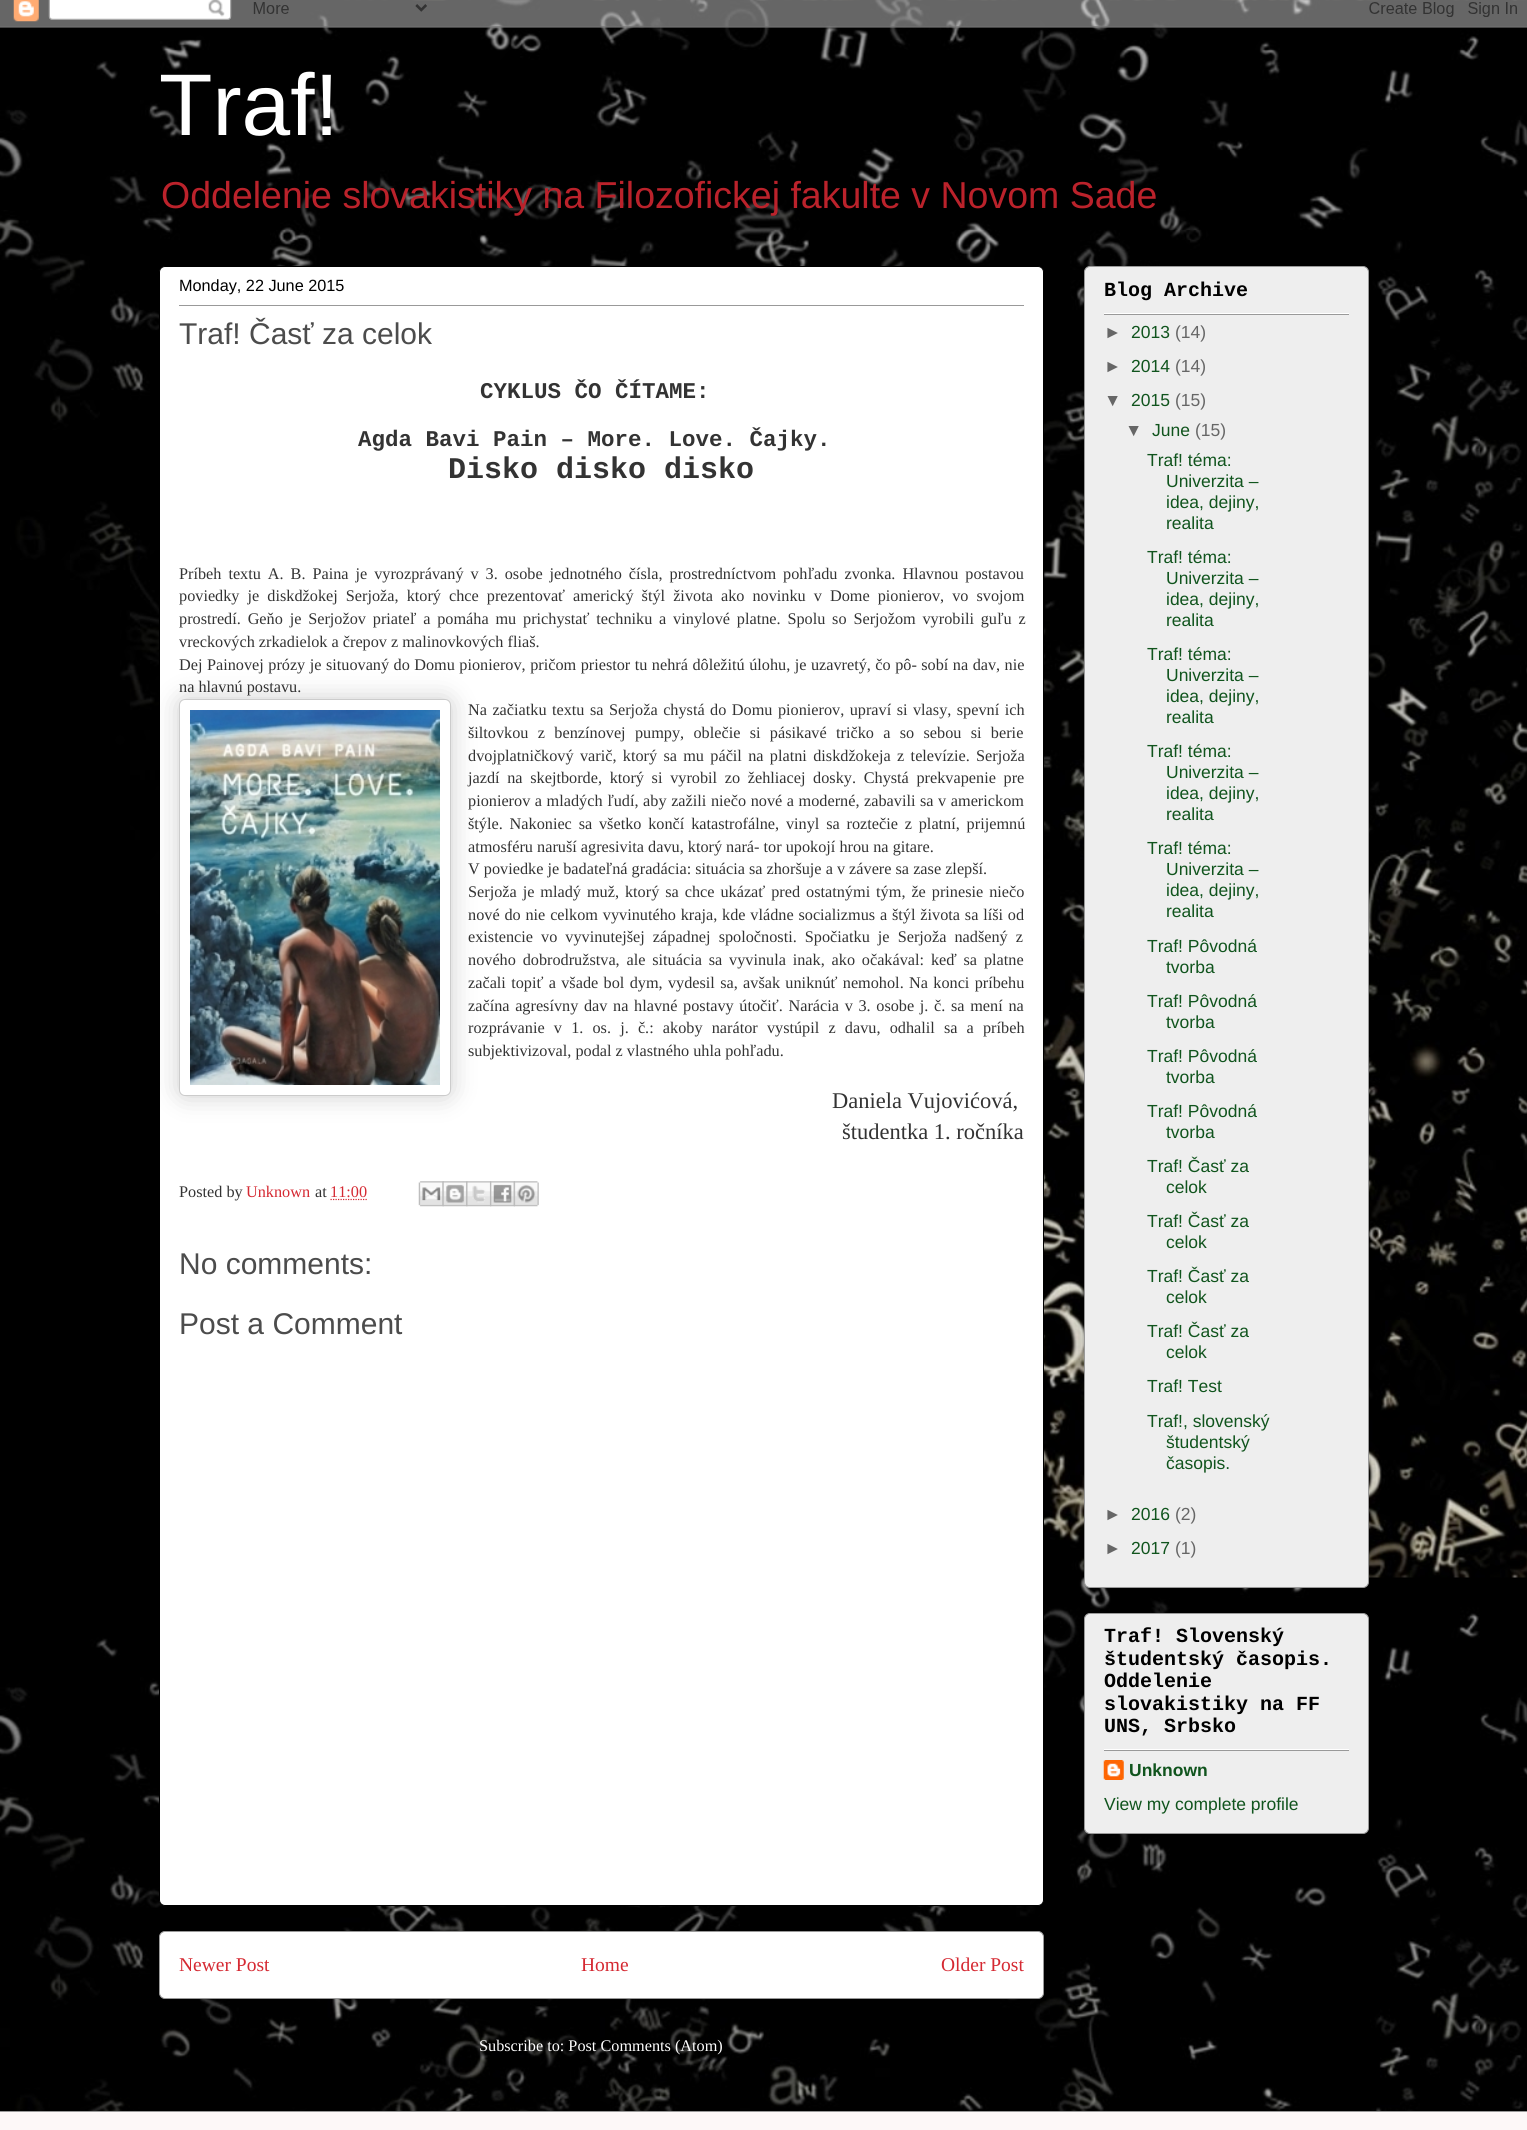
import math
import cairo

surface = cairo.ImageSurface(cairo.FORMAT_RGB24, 1527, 2130)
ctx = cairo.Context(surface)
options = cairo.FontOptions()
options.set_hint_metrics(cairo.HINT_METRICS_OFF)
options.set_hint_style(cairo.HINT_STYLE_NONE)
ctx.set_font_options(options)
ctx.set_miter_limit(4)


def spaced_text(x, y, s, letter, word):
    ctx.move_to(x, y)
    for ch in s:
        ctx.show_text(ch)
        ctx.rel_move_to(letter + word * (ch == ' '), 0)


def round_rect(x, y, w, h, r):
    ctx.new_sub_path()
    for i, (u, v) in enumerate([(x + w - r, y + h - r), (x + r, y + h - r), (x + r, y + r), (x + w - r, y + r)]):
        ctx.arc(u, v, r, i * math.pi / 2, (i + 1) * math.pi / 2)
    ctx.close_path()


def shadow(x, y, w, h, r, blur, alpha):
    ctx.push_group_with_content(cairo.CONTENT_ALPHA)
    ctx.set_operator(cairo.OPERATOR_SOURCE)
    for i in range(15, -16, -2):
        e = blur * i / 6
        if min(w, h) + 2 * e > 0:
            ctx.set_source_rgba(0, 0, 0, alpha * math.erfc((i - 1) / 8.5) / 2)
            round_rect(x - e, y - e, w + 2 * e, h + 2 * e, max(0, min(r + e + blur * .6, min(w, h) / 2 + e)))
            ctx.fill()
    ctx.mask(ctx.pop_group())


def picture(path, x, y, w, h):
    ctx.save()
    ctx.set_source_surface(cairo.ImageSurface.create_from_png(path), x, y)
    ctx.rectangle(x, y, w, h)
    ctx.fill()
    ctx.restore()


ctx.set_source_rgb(1, 1, 1)
ctx.paint()
picture("img1.png", 0, 0, 1527, 2111)
picture("img2.png", 0, 0, 1527, 28)
ctx.select_font_face("Liberation Sans")
ctx.set_font_size(87.5)
ctx.set_source_rgb(1, 1, 1)
ctx.move_to(159, 135)
ctx.show_text("Traf!")
ctx.set_font_size(37.5)
ctx.set_source_rgb(0.733, 0.133, 0.169)
ctx.move_to(161, 208)
ctx.show_text("Oddelenie slovakistiky na Filozofickej fakulte v Novom Sade")
ctx.set_source_rgb(0, 0, 0)
shadow(159, 1931, 885, 68, 6, 12.5, 0.2)
ctx.set_source_rgb(1, 1, 1)
round_rect(159.5, 1931.5, 884, 67, 5.5)
ctx.fill_preserve()
ctx.set_source_rgb(0.6, 0.6, 0.6)
ctx.set_line_width(1)
ctx.stroke()
ctx.set_source_rgb(0, 0, 0)
shadow(159, 266, 885, 1640, 6, 12.5, 0.2)
ctx.set_source_rgb(1, 1, 1)
round_rect(159.5, 266.5, 884, 1639, 5.5)
ctx.fill_preserve()
ctx.set_source_rgb(0, 0, 0)
ctx.stroke()
ctx.set_font_size(16.25)
ctx.move_to(179, 291)
ctx.show_text("Monday, 22 June 2015")
ctx.set_source_rgb(0.6, 0.6, 0.6)
ctx.rectangle(179, 305, 845, 1)
ctx.fill()
ctx.set_font_size(30)
ctx.set_source_rgb(0.298, 0.298, 0.298)
ctx.move_to(179, 344)
ctx.show_text("Traf! Časť za celok")
ctx.select_font_face("Liberation Mono", cairo.FONT_SLANT_NORMAL, cairo.FONT_WEIGHT_BOLD)
ctx.set_font_size(22.5)
ctx.set_source_rgb(0.2, 0.2, 0.2)
ctx.move_to(480, 398)
ctx.show_text("CYKLUS ČO ČÍTAME:")
ctx.move_to(358, 446)
ctx.show_text("Agda Bavi Pain – More. Love. Čajky.")
ctx.set_font_size(30)
ctx.move_to(448, 478)
ctx.show_text("Disko disko disko")
ctx.select_font_face("Liberation Serif")
ctx.set_font_size(16.25)
spaced_text(179, 579, "Príbeh textu A. B. Paina je vyrozprávaný v 3. osobe jednotného čísla, prostredníctvom pohľadu zvonka. Hlavnou postavou", 0, 2.9)
spaced_text(179, 601, "poviedky je diskdžokej Serjoža, ktorý chce prezentovať americký štýl života ako novinku v Dome pionierov, vo svojom", 0, 4)
spaced_text(179, 624, "prostredí. Geňo je Serjožov priateľ a pomáha mu prichystať techniku a vinylové platne. Spolu so Serjožom vyrobili guľu z", 0, 2.75)
ctx.move_to(179, 647)
ctx.show_text("vreckových zrkadielok a črepov z malinovkových fliaš.")
spaced_text(179, 670, "Dej Painovej prózy je situovaný do Domu pionierov, pričom priestor tu nehrá dôležitú úlohu, je uzavretý, čo pô- sobí na dav, nie", 0, 0.4)
ctx.move_to(179, 692)
ctx.show_text("na hlavnú postavu.")
ctx.set_source_rgb(0, 0, 0)
shadow(179, 699, 272, 397, 6, 12.5, 0.2)
ctx.set_source_rgb(1, 1, 1)
round_rect(179.5, 699.5, 271, 396, 5.5)
ctx.fill_preserve()
ctx.set_source_rgb(0.8, 0.8, 0.8)
ctx.stroke()
picture("img3.png", 190, 710, 250, 375)
ctx.set_source_rgb(0.2, 0.2, 0.2)
spaced_text(468, 715, "Na začiatku textu sa Serjoža chystá do Domu pionierov, upraví si vlasy, spevní ich", 0, 1.4)
spaced_text(468, 738, "šiltovkou z benzínovej pumpy, oblečie si pásikavé tričko a so sebou si berie", 0, 5.25)
spaced_text(468, 761, "dvojplatničkový varič, ktorý sa mu páčil na platni diskdžokeja z televízie. Serjoža", 0, 2.25)
spaced_text(468, 783, "jazdí na skejtborde, ktorý si vyrobil zo žehliacej dosky. Chystá prekvapenie pre", 0, 3.6)
spaced_text(468, 806, "pionierov a mladých ľudí, aby zažili niečo nové a moderné, zabavili sa v americkom", 0, 0.5)
spaced_text(468, 829, "štýle. Nakoniec sa všetko končí katastrofálne, vinyl sa roztečie z platní, prijemnú", 0, 2.75)
ctx.move_to(468, 852)
ctx.show_text("atmosféru naruší agresivita davu, ktorý nará- tor upokojí hrou na gitare.")
ctx.move_to(468, 874)
ctx.show_text("V poviedke je badateľná gradácia: situácia sa zhoršuje a v závere sa zase zlepší.")
spaced_text(468, 897, "Serjoža je mladý muž, ktorý sa chce ukázať pred ostatnými tým, že prinesie niečo", 0, 1.9)
spaced_text(468, 920, "nové do nie celkom vyvinutého kraja, kde vládne socializmus a štýl života sa líši od", 0, 0.75)
spaced_text(468, 942, "existencie vo vyvinutejšej západnej spoločnosti. Spočiatku je Serjoža nadšený z", 0, 4)
spaced_text(468, 965, "nového dobrodružstva, ale situácia sa vyvinula inak, ako očakával: keď sa platne", 0, 2.75)
spaced_text(468, 988, "začali topiť a všade bol dym, vydesil sa, avšak uniknúť nemohol. Na konci príbehu", 0, 1.25)
spaced_text(468, 1011, "začína agresívny dav na hlavné postavy útočiť. Narácia v 3. osobe j. č. sa mení na", 0, 1.6)
spaced_text(468, 1033, "rozprávanie v 1. os. j. č.: akoby narátor vystúpil z davu, odhalil sa a príbeh", 0, 5.1)
ctx.move_to(468, 1056)
ctx.show_text("subjektivizoval, podal z vlastného uhla pohľadu.")
ctx.set_font_size(22.5)
ctx.move_to(832, 1108)
ctx.show_text("Daniela Vujovićová,")
ctx.move_to(842, 1139)
ctx.show_text("študentka 1. ročníka")
ctx.set_font_size(16.25)
ctx.move_to(179, 1197)
ctx.show_text("Posted by")
ctx.set_source_rgb(0.835, 0.161, 0.196)
ctx.move_to(246, 1197)
ctx.show_text("Unknown")
ctx.set_source_rgb(0.2, 0.2, 0.2)
ctx.move_to(315, 1197)
ctx.show_text("at")
ctx.set_source_rgb(0.835, 0.161, 0.196)
ctx.move_to(330, 1197)
ctx.show_text("11:00")
ctx.new_path()
ctx.move_to(330.5, 1199.5)
ctx.line_to(367.5, 1199.5)
ctx.set_line_width(1.2)
ctx.set_dash([1.25, 1.25])
ctx.stroke()
picture("img4.png", 418, 1181, 26, 26)
picture("img5.png", 442, 1181, 26, 26)
picture("img6.png", 466, 1181, 26, 26)
picture("img7.png", 490, 1181, 25, 26)
picture("img8.png", 513, 1181, 26, 26)
ctx.select_font_face("Liberation Sans")
ctx.set_font_size(30)
ctx.set_source_rgb(0.298, 0.298, 0.298)
ctx.move_to(179, 1274)
ctx.show_text("No comments:")
ctx.move_to(179, 1334)
ctx.show_text("Post a Comment")
ctx.select_font_face("Liberation Serif")
ctx.set_font_size(19.5)
ctx.set_source_rgb(0.835, 0.161, 0.196)
ctx.move_to(179, 1971)
ctx.show_text("Newer Post")
ctx.move_to(581, 1971)
ctx.show_text("Home")
ctx.move_to(941, 1971)
ctx.show_text("Older Post")
ctx.set_font_size(16.25)
ctx.set_source_rgb(1, 1, 1)
ctx.move_to(479, 2051)
ctx.show_text("Subscribe to: Post Comments (Atom)")
ctx.set_source_rgb(0, 0, 0)
shadow(1084, 266, 285, 1322, 6, 12.5, 0.2)
ctx.set_source_rgb(0.933, 0.933, 0.933)
round_rect(1084.5, 266.5, 284, 1321, 5.5)
ctx.fill_preserve()
ctx.set_source_rgb(0.6, 0.6, 0.6)
ctx.set_line_width(1)
ctx.set_dash([])
ctx.stroke()
ctx.set_source_rgb(1, 1, 1)
ctx.rectangle(1104, 313, 245, 1)
ctx.fill()
ctx.select_font_face("Liberation Mono", cairo.FONT_SLANT_NORMAL, cairo.FONT_WEIGHT_BOLD)
ctx.set_font_size(20)
ctx.set_source_rgb(0, 0, 0)
ctx.move_to(1104, 296)
ctx.show_text("Blog Archive")
ctx.set_source_rgb(0.6, 0.6, 0.6)
ctx.rectangle(1104, 314, 245, 1)
ctx.fill()
ctx.select_font_face("Liberation Sans")
ctx.set_font_size(17.5)
ctx.set_source_rgb(0.4, 0.4, 0.4)
ctx.move_to(1104, 338)
ctx.show_text("►")
ctx.set_source_rgb(0.063, 0.329, 0.114)
ctx.move_to(1131, 338)
ctx.show_text("2013")
ctx.set_source_rgb(0.4, 0.4, 0.4)
ctx.move_to(1175, 338)
ctx.show_text("(14)")
ctx.move_to(1104, 372)
ctx.show_text("►")
ctx.set_source_rgb(0.063, 0.329, 0.114)
ctx.move_to(1131, 372)
ctx.show_text("2014")
ctx.set_source_rgb(0.4, 0.4, 0.4)
ctx.move_to(1175, 372)
ctx.show_text("(14)")
ctx.move_to(1104, 406)
ctx.show_text("▼")
ctx.set_source_rgb(0.063, 0.329, 0.114)
ctx.move_to(1131, 406)
ctx.show_text("2015")
ctx.set_source_rgb(0.4, 0.4, 0.4)
ctx.move_to(1175, 406)
ctx.show_text("(15)")
ctx.move_to(1125, 436)
ctx.show_text("▼")
ctx.set_source_rgb(0.063, 0.329, 0.114)
ctx.move_to(1152, 436)
ctx.show_text("June")
ctx.set_source_rgb(0.4, 0.4, 0.4)
ctx.move_to(1195, 436)
ctx.show_text("(15)")
ctx.set_source_rgb(0.063, 0.329, 0.114)
ctx.move_to(1147, 466)
ctx.show_text("Traf! téma:")
ctx.move_to(1166, 487)
ctx.show_text("Univerzita –")
ctx.move_to(1166, 508)
ctx.show_text("idea, dejiny,")
ctx.move_to(1166, 529)
ctx.show_text("realita")
ctx.move_to(1147, 563)
ctx.show_text("Traf! téma:")
ctx.move_to(1166, 584)
ctx.show_text("Univerzita –")
ctx.move_to(1166, 605)
ctx.show_text("idea, dejiny,")
ctx.move_to(1166, 626)
ctx.show_text("realita")
ctx.move_to(1147, 660)
ctx.show_text("Traf! téma:")
ctx.move_to(1166, 681)
ctx.show_text("Univerzita –")
ctx.move_to(1166, 702)
ctx.show_text("idea, dejiny,")
ctx.move_to(1166, 723)
ctx.show_text("realita")
ctx.move_to(1147, 757)
ctx.show_text("Traf! téma:")
ctx.move_to(1166, 778)
ctx.show_text("Univerzita –")
ctx.move_to(1166, 799)
ctx.show_text("idea, dejiny,")
ctx.move_to(1166, 820)
ctx.show_text("realita")
ctx.move_to(1147, 854)
ctx.show_text("Traf! téma:")
ctx.move_to(1166, 875)
ctx.show_text("Univerzita –")
ctx.move_to(1166, 896)
ctx.show_text("idea, dejiny,")
ctx.move_to(1166, 917)
ctx.show_text("realita")
ctx.move_to(1147, 952)
ctx.show_text("Traf! Pôvodná")
ctx.move_to(1166, 973)
ctx.show_text("tvorba")
ctx.move_to(1147, 1007)
ctx.show_text("Traf! Pôvodná")
ctx.move_to(1166, 1028)
ctx.show_text("tvorba")
ctx.move_to(1147, 1062)
ctx.show_text("Traf! Pôvodná")
ctx.move_to(1166, 1083)
ctx.show_text("tvorba")
ctx.move_to(1147, 1117)
ctx.show_text("Traf! Pôvodná")
ctx.move_to(1166, 1138)
ctx.show_text("tvorba")
ctx.move_to(1147, 1172)
ctx.show_text("Traf! Časť za")
ctx.move_to(1166, 1193)
ctx.show_text("celok")
ctx.move_to(1147, 1227)
ctx.show_text("Traf! Časť za")
ctx.move_to(1166, 1248)
ctx.show_text("celok")
ctx.move_to(1147, 1282)
ctx.show_text("Traf! Časť za")
ctx.move_to(1166, 1303)
ctx.show_text("celok")
ctx.move_to(1147, 1337)
ctx.show_text("Traf! Časť za")
ctx.move_to(1166, 1358)
ctx.show_text("celok")
ctx.move_to(1147, 1392)
ctx.show_text("Traf! Test")
ctx.move_to(1147, 1427)
ctx.show_text("Traf!, slovenský")
ctx.move_to(1166, 1448)
ctx.show_text("študentský")
ctx.move_to(1166, 1469)
ctx.show_text("časopis.")
ctx.set_source_rgb(0.4, 0.4, 0.4)
ctx.move_to(1104, 1520)
ctx.show_text("►")
ctx.set_source_rgb(0.063, 0.329, 0.114)
ctx.move_to(1131, 1520)
ctx.show_text("2016")
ctx.set_source_rgb(0.4, 0.4, 0.4)
ctx.move_to(1175, 1520)
ctx.show_text("(2)")
ctx.move_to(1104, 1554)
ctx.show_text("►")
ctx.set_source_rgb(0.063, 0.329, 0.114)
ctx.move_to(1131, 1554)
ctx.show_text("2017")
ctx.set_source_rgb(0.4, 0.4, 0.4)
ctx.move_to(1175, 1554)
ctx.show_text("(1)")
ctx.set_source_rgb(0, 0, 0)
shadow(1084, 1613, 285, 221, 6, 12.5, 0.2)
ctx.set_source_rgb(0.933, 0.933, 0.933)
round_rect(1084.5, 1613.5, 284, 220, 5.5)
ctx.fill_preserve()
ctx.set_source_rgb(0.6, 0.6, 0.6)
ctx.stroke()
ctx.set_source_rgb(1, 1, 1)
ctx.rectangle(1104, 1749, 245, 1)
ctx.fill()
ctx.select_font_face("Liberation Mono", cairo.FONT_SLANT_NORMAL, cairo.FONT_WEIGHT_BOLD)
ctx.set_font_size(20)
ctx.set_source_rgb(0, 0, 0)
ctx.move_to(1104, 1642)
ctx.show_text("Traf! Slovenský")
ctx.move_to(1104, 1665)
ctx.show_text("študentský časopis.")
ctx.move_to(1104, 1687)
ctx.show_text("Oddelenie")
ctx.move_to(1104, 1710)
ctx.show_text("slovakistiky na FF")
ctx.move_to(1104, 1732)
ctx.show_text("UNS, Srbsko")
ctx.set_source_rgb(0.6, 0.6, 0.6)
ctx.rectangle(1104, 1750, 245, 1)
ctx.fill()
picture("img9.png", 1103, 1760, 21, 20)
ctx.select_font_face("Liberation Sans", cairo.FONT_SLANT_NORMAL, cairo.FONT_WEIGHT_BOLD)
ctx.set_font_size(17.5)
ctx.set_source_rgb(0.063, 0.329, 0.114)
ctx.move_to(1129, 1776)
ctx.show_text("Unknown")
ctx.select_font_face("Liberation Sans")
ctx.move_to(1104, 1810)
ctx.show_text("View my complete profile")
ctx.set_source_rgb(0, 0, 0)
shadow(-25, 2111, 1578, 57, 0, 12.5, 0.2)
ctx.set_source_rgb(0.992, 0.969, 0.969)
ctx.rectangle(0, 2112, 1527, 18)
ctx.fill()
ctx.set_source_rgb(0.6, 0.6, 0.6)
ctx.rectangle(0, 2111, 1527, 1)
ctx.fill()
surface.write_to_png("page.png")
